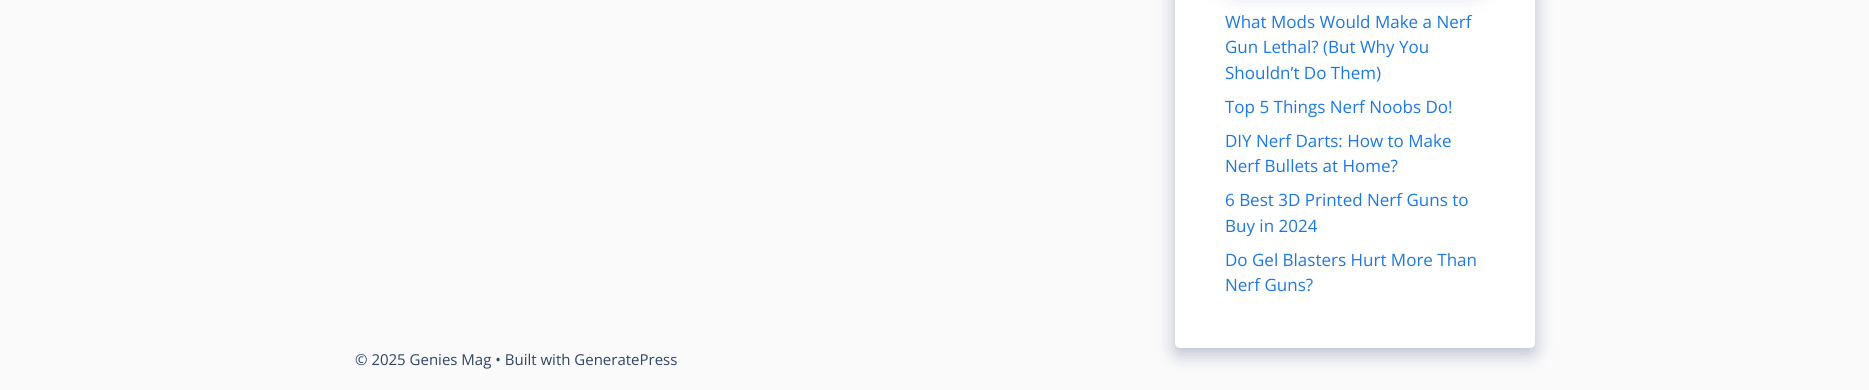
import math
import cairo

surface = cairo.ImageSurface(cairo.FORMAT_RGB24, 1869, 390)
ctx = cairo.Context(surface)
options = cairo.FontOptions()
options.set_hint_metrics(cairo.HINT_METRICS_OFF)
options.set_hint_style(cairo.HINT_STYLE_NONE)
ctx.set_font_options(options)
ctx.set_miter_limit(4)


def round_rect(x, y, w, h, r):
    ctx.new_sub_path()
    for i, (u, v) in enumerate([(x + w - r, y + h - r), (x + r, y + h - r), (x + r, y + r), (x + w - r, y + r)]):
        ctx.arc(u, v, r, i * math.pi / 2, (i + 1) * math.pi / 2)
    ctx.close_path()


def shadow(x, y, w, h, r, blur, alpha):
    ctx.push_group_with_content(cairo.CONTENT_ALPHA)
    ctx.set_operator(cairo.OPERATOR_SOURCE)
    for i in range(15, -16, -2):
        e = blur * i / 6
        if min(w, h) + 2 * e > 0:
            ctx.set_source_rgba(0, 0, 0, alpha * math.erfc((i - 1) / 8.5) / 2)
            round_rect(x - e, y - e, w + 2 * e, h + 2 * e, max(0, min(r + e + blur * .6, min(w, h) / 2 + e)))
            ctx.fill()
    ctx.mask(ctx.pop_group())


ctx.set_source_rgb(0.98, 0.98, 0.98)
ctx.paint()
ctx.set_source_rgb(0.09, 0.169, 0.388)
shadow(1175, -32, 360, 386, 5, 9, 0.3)
ctx.set_source_rgb(1, 1, 1)
round_rect(1175, -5, 360, 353, 5)
ctx.fill()
ctx.set_source_rgb(0.09, 0.169, 0.388)
shadow(1225, -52, 260, 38, 10, 14, 0.3)
ctx.select_font_face("Open Sans")
ctx.set_font_size(17)
ctx.set_source_rgb(0.106, 0.471, 0.886)
ctx.move_to(1225, 28)
ctx.show_text("What Mods Would Make a Nerf")
ctx.move_to(1225, 53)
ctx.show_text("Gun Lethal? (But Why You")
ctx.move_to(1225, 79)
ctx.show_text("Shouldn’t Do Them)")
ctx.move_to(1225, 113)
ctx.show_text("Top 5 Things Nerf Noobs Do!")
ctx.move_to(1225, 147)
ctx.show_text("DIY Nerf Darts: How to Make")
ctx.move_to(1225, 172)
ctx.show_text("Nerf Bullets at Home?")
ctx.move_to(1225, 206)
ctx.show_text("6 Best 3D Printed Nerf Guns to")
ctx.move_to(1225, 232)
ctx.show_text("Buy in 2024")
ctx.move_to(1225, 266)
ctx.show_text("Do Gel Blasters Hurt More Than")
ctx.move_to(1225, 291)
ctx.show_text("Nerf Guns?")
ctx.set_font_size(15)
ctx.set_source_rgb(0.184, 0.267, 0.408)
ctx.move_to(355, 365)
ctx.show_text("© 2025 Genies Mag • Built with GeneratePress")
surface.write_to_png("page.png")
